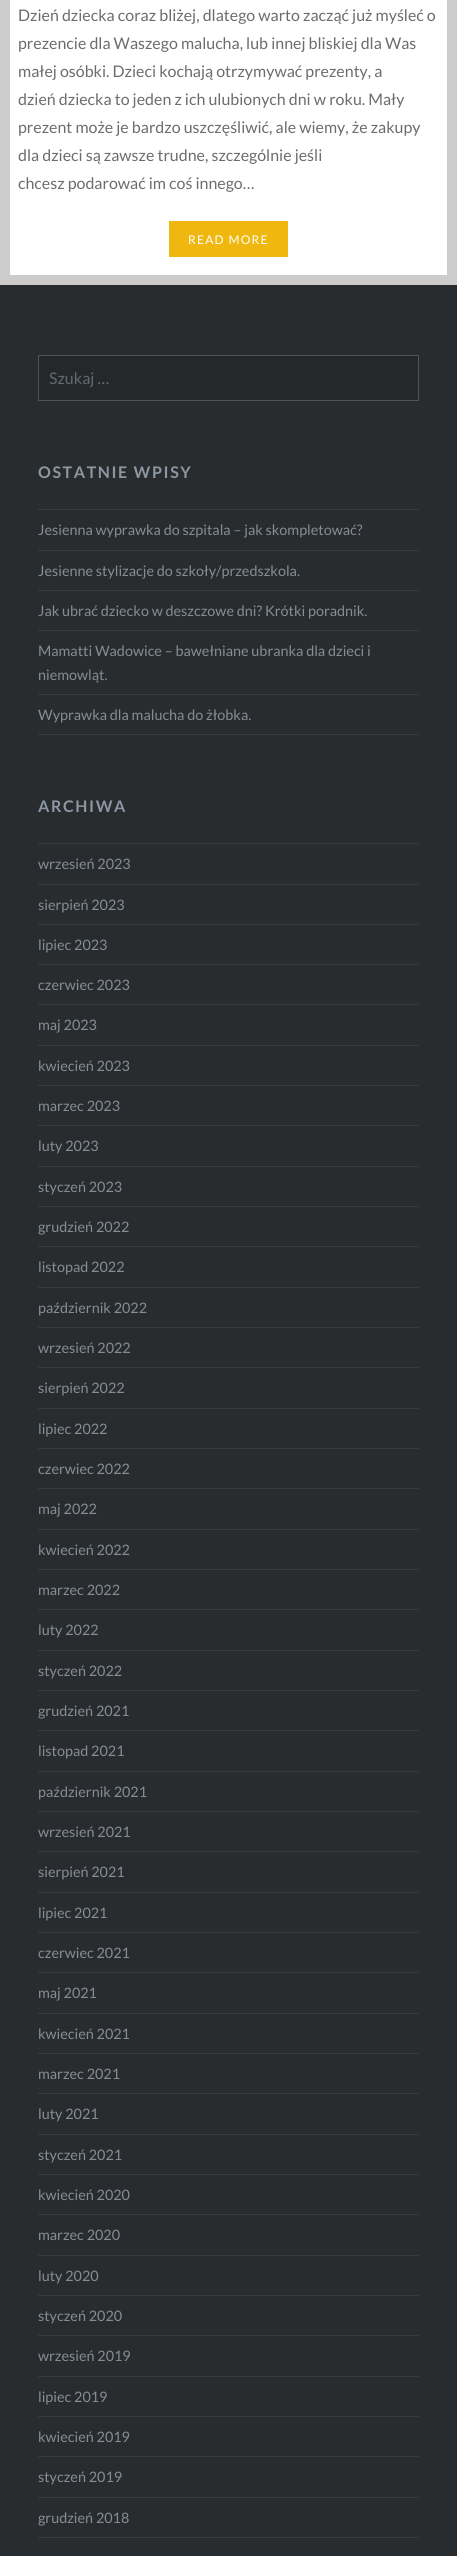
import math
import cairo

surface = cairo.ImageSurface(cairo.FORMAT_RGB24, 457, 2556)
ctx = cairo.Context(surface)
options = cairo.FontOptions()
options.set_hint_metrics(cairo.HINT_METRICS_OFF)
options.set_hint_style(cairo.HINT_STYLE_NONE)
ctx.set_font_options(options)
ctx.set_miter_limit(4)


def spaced_text(x, y, s, letter, word):
    ctx.move_to(x, y)
    for ch in s:
        ctx.show_text(ch)
        ctx.rel_move_to(letter + word * (ch == ' '), 0)


ctx.set_source_rgb(1, 1, 1)
ctx.paint()
ctx.rectangle(5, -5, 447, 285)
ctx.set_source_rgb(0.8, 0.8, 0.8)
ctx.set_line_width(10)
ctx.stroke()
ctx.select_font_face("Lato")
ctx.set_font_size(16)
ctx.set_source_rgb(0.416, 0.424, 0.431)
ctx.move_to(18, 21)
ctx.show_text("Dzień dziecka coraz bliżej, dlatego warto zacząć już myśleć o")
ctx.move_to(18, 49)
ctx.show_text("prezencie dla Waszego malucha, lub innej bliskiej dla Was")
ctx.move_to(18, 77)
ctx.show_text("małej osóbki. Dzieci kochają otrzymywać prezenty, a")
ctx.move_to(18, 105)
ctx.show_text("dzień dziecka to jeden z ich ulubionych dni w roku. Mały")
ctx.move_to(18, 133)
ctx.show_text("prezent może je bardzo uszczęśliwić, ale wiemy, że zakupy")
ctx.move_to(18, 161)
ctx.show_text("dla dzieci są zawsze trudne, szczególnie jeśli")
ctx.move_to(18, 189)
ctx.show_text("chcesz podarować im coś innego…")
ctx.set_source_rgb(0.941, 0.722, 0.055)
ctx.rectangle(169, 221, 119, 36)
ctx.fill()
ctx.set_font_size(12)
ctx.set_source_rgb(1, 1, 1)
spaced_text(188, 244, "READ MORE", 1.25, 0)
ctx.set_source_rgb(0.161, 0.173, 0.184)
ctx.rectangle(0, 285, 457, 2271)
ctx.fill()
ctx.set_source_rgb(0.145, 0.157, 0.165)
ctx.rectangle(38.5, 355.5, 380, 45)
ctx.fill_preserve()
ctx.set_source_rgb(0.302, 0.329, 0.357)
ctx.set_line_width(1)
ctx.stroke()
ctx.set_font_size(16)
ctx.set_source_rgb(0.38, 0.416, 0.455)
ctx.move_to(49, 384)
ctx.show_text("Szukaj …")
ctx.select_font_face("Lato", cairo.FONT_SLANT_NORMAL, cairo.FONT_WEIGHT_BOLD)
ctx.set_source_rgb(0.549, 0.592, 0.635)
spaced_text(38, 478, "OSTATNIE WPISY", 1.6, 0)
ctx.set_source_rgb(0.212, 0.231, 0.251)
ctx.rectangle(38, 509, 381, 1)
ctx.fill()
ctx.rectangle(38, 550, 381, 1)
ctx.fill()
ctx.select_font_face("Lato")
ctx.set_font_size(14.4)
ctx.set_source_rgb(0.522, 0.553, 0.584)
ctx.move_to(38, 535)
ctx.show_text("Jesienna wyprawka do szpitala – jak skompletować?")
ctx.set_source_rgb(0.212, 0.231, 0.251)
ctx.rectangle(38, 590, 381, 1)
ctx.fill()
ctx.set_source_rgb(0.522, 0.553, 0.584)
ctx.move_to(38, 576)
ctx.show_text("Jesienne stylizacje do szkoły/przedszkola.")
ctx.set_source_rgb(0.212, 0.231, 0.251)
ctx.rectangle(38, 630, 381, 1)
ctx.fill()
ctx.set_source_rgb(0.522, 0.553, 0.584)
ctx.move_to(38, 616)
ctx.show_text("Jak ubrać dziecko w deszczowe dni? Krótki poradnik.")
ctx.set_source_rgb(0.212, 0.231, 0.251)
ctx.rectangle(38, 694, 381, 1)
ctx.fill()
ctx.set_source_rgb(0.522, 0.553, 0.584)
ctx.move_to(38, 656)
ctx.show_text("Mamatti Wadowice – bawełniane ubranka dla dzieci i")
ctx.move_to(38, 680)
ctx.show_text("niemowląt.")
ctx.set_source_rgb(0.212, 0.231, 0.251)
ctx.rectangle(38, 734, 381, 1)
ctx.fill()
ctx.set_source_rgb(0.522, 0.553, 0.584)
ctx.move_to(38, 720)
ctx.show_text("Wyprawka dla malucha do żłobka.")
ctx.select_font_face("Lato", cairo.FONT_SLANT_NORMAL, cairo.FONT_WEIGHT_BOLD)
ctx.set_font_size(16)
ctx.set_source_rgb(0.549, 0.592, 0.635)
spaced_text(38, 812, "ARCHIWA", 1.6, 0)
ctx.set_source_rgb(0.212, 0.231, 0.251)
ctx.rectangle(38, 843, 381, 1)
ctx.fill()
ctx.rectangle(38, 884, 381, 1)
ctx.fill()
ctx.select_font_face("Lato")
ctx.set_font_size(14.4)
ctx.set_source_rgb(0.522, 0.553, 0.584)
ctx.move_to(38, 869)
ctx.show_text("wrzesień 2023")
ctx.set_source_rgb(0.212, 0.231, 0.251)
ctx.rectangle(38, 924, 381, 1)
ctx.fill()
ctx.set_source_rgb(0.522, 0.553, 0.584)
ctx.move_to(38, 910)
ctx.show_text("sierpień 2023")
ctx.set_source_rgb(0.212, 0.231, 0.251)
ctx.rectangle(38, 964, 381, 1)
ctx.fill()
ctx.set_source_rgb(0.522, 0.553, 0.584)
ctx.move_to(38, 950)
ctx.show_text("lipiec 2023")
ctx.set_source_rgb(0.212, 0.231, 0.251)
ctx.rectangle(38, 1004, 381, 1)
ctx.fill()
ctx.set_source_rgb(0.522, 0.553, 0.584)
ctx.move_to(38, 990)
ctx.show_text("czerwiec 2023")
ctx.set_source_rgb(0.212, 0.231, 0.251)
ctx.rectangle(38, 1045, 381, 1)
ctx.fill()
ctx.set_source_rgb(0.522, 0.553, 0.584)
ctx.move_to(38, 1030)
ctx.show_text("maj 2023")
ctx.set_source_rgb(0.212, 0.231, 0.251)
ctx.rectangle(38, 1085, 381, 1)
ctx.fill()
ctx.set_source_rgb(0.522, 0.553, 0.584)
ctx.move_to(38, 1071)
ctx.show_text("kwiecień 2023")
ctx.set_source_rgb(0.212, 0.231, 0.251)
ctx.rectangle(38, 1125, 381, 1)
ctx.fill()
ctx.set_source_rgb(0.522, 0.553, 0.584)
ctx.move_to(38, 1111)
ctx.show_text("marzec 2023")
ctx.set_source_rgb(0.212, 0.231, 0.251)
ctx.rectangle(38, 1166, 381, 1)
ctx.fill()
ctx.set_source_rgb(0.522, 0.553, 0.584)
ctx.move_to(38, 1151)
ctx.show_text("luty 2023")
ctx.set_source_rgb(0.212, 0.231, 0.251)
ctx.rectangle(38, 1206, 381, 1)
ctx.fill()
ctx.set_source_rgb(0.522, 0.553, 0.584)
ctx.move_to(38, 1192)
ctx.show_text("styczeń 2023")
ctx.set_source_rgb(0.212, 0.231, 0.251)
ctx.rectangle(38, 1246, 381, 1)
ctx.fill()
ctx.set_source_rgb(0.522, 0.553, 0.584)
ctx.move_to(38, 1232)
ctx.show_text("grudzień 2022")
ctx.set_source_rgb(0.212, 0.231, 0.251)
ctx.rectangle(38, 1287, 381, 1)
ctx.fill()
ctx.set_source_rgb(0.522, 0.553, 0.584)
ctx.move_to(38, 1272)
ctx.show_text("listopad 2022")
ctx.set_source_rgb(0.212, 0.231, 0.251)
ctx.rectangle(38, 1327, 381, 1)
ctx.fill()
ctx.set_source_rgb(0.522, 0.553, 0.584)
ctx.move_to(38, 1313)
ctx.show_text("październik 2022")
ctx.set_source_rgb(0.212, 0.231, 0.251)
ctx.rectangle(38, 1367, 381, 1)
ctx.fill()
ctx.set_source_rgb(0.522, 0.553, 0.584)
ctx.move_to(38, 1353)
ctx.show_text("wrzesień 2022")
ctx.set_source_rgb(0.212, 0.231, 0.251)
ctx.rectangle(38, 1408, 381, 1)
ctx.fill()
ctx.set_source_rgb(0.522, 0.553, 0.584)
ctx.move_to(38, 1393)
ctx.show_text("sierpień 2022")
ctx.set_source_rgb(0.212, 0.231, 0.251)
ctx.rectangle(38, 1448, 381, 1)
ctx.fill()
ctx.set_source_rgb(0.522, 0.553, 0.584)
ctx.move_to(38, 1434)
ctx.show_text("lipiec 2022")
ctx.set_source_rgb(0.212, 0.231, 0.251)
ctx.rectangle(38, 1488, 381, 1)
ctx.fill()
ctx.set_source_rgb(0.522, 0.553, 0.584)
ctx.move_to(38, 1474)
ctx.show_text("czerwiec 2022")
ctx.set_source_rgb(0.212, 0.231, 0.251)
ctx.rectangle(38, 1529, 381, 1)
ctx.fill()
ctx.set_source_rgb(0.522, 0.553, 0.584)
ctx.move_to(38, 1514)
ctx.show_text("maj 2022")
ctx.set_source_rgb(0.212, 0.231, 0.251)
ctx.rectangle(38, 1569, 381, 1)
ctx.fill()
ctx.set_source_rgb(0.522, 0.553, 0.584)
ctx.move_to(38, 1555)
ctx.show_text("kwiecień 2022")
ctx.set_source_rgb(0.212, 0.231, 0.251)
ctx.rectangle(38, 1609, 381, 1)
ctx.fill()
ctx.set_source_rgb(0.522, 0.553, 0.584)
ctx.move_to(38, 1595)
ctx.show_text("marzec 2022")
ctx.set_source_rgb(0.212, 0.231, 0.251)
ctx.rectangle(38, 1650, 381, 1)
ctx.fill()
ctx.set_source_rgb(0.522, 0.553, 0.584)
ctx.move_to(38, 1635)
ctx.show_text("luty 2022")
ctx.set_source_rgb(0.212, 0.231, 0.251)
ctx.rectangle(38, 1690, 381, 1)
ctx.fill()
ctx.set_source_rgb(0.522, 0.553, 0.584)
ctx.move_to(38, 1676)
ctx.show_text("styczeń 2022")
ctx.set_source_rgb(0.212, 0.231, 0.251)
ctx.rectangle(38, 1730, 381, 1)
ctx.fill()
ctx.set_source_rgb(0.522, 0.553, 0.584)
ctx.move_to(38, 1716)
ctx.show_text("grudzień 2021")
ctx.set_source_rgb(0.212, 0.231, 0.251)
ctx.rectangle(38, 1771, 381, 1)
ctx.fill()
ctx.set_source_rgb(0.522, 0.553, 0.584)
ctx.move_to(38, 1756)
ctx.show_text("listopad 2021")
ctx.set_source_rgb(0.212, 0.231, 0.251)
ctx.rectangle(38, 1811, 381, 1)
ctx.fill()
ctx.set_source_rgb(0.522, 0.553, 0.584)
ctx.move_to(38, 1797)
ctx.show_text("październik 2021")
ctx.set_source_rgb(0.212, 0.231, 0.251)
ctx.rectangle(38, 1851, 381, 1)
ctx.fill()
ctx.set_source_rgb(0.522, 0.553, 0.584)
ctx.move_to(38, 1837)
ctx.show_text("wrzesień 2021")
ctx.set_source_rgb(0.212, 0.231, 0.251)
ctx.rectangle(38, 1892, 381, 1)
ctx.fill()
ctx.set_source_rgb(0.522, 0.553, 0.584)
ctx.move_to(38, 1877)
ctx.show_text("sierpień 2021")
ctx.set_source_rgb(0.212, 0.231, 0.251)
ctx.rectangle(38, 1932, 381, 1)
ctx.fill()
ctx.set_source_rgb(0.522, 0.553, 0.584)
ctx.move_to(38, 1918)
ctx.show_text("lipiec 2021")
ctx.set_source_rgb(0.212, 0.231, 0.251)
ctx.rectangle(38, 1972, 381, 1)
ctx.fill()
ctx.set_source_rgb(0.522, 0.553, 0.584)
ctx.move_to(38, 1958)
ctx.show_text("czerwiec 2021")
ctx.set_source_rgb(0.212, 0.231, 0.251)
ctx.rectangle(38, 2013, 381, 1)
ctx.fill()
ctx.set_source_rgb(0.522, 0.553, 0.584)
ctx.move_to(38, 1998)
ctx.show_text("maj 2021")
ctx.set_source_rgb(0.212, 0.231, 0.251)
ctx.rectangle(38, 2053, 381, 1)
ctx.fill()
ctx.set_source_rgb(0.522, 0.553, 0.584)
ctx.move_to(38, 2039)
ctx.show_text("kwiecień 2021")
ctx.set_source_rgb(0.212, 0.231, 0.251)
ctx.rectangle(38, 2093, 381, 1)
ctx.fill()
ctx.set_source_rgb(0.522, 0.553, 0.584)
ctx.move_to(38, 2079)
ctx.show_text("marzec 2021")
ctx.set_source_rgb(0.212, 0.231, 0.251)
ctx.rectangle(38, 2134, 381, 1)
ctx.fill()
ctx.set_source_rgb(0.522, 0.553, 0.584)
ctx.move_to(38, 2119)
ctx.show_text("luty 2021")
ctx.set_source_rgb(0.212, 0.231, 0.251)
ctx.rectangle(38, 2174, 381, 1)
ctx.fill()
ctx.set_source_rgb(0.522, 0.553, 0.584)
ctx.move_to(38, 2160)
ctx.show_text("styczeń 2021")
ctx.set_source_rgb(0.212, 0.231, 0.251)
ctx.rectangle(38, 2214, 381, 1)
ctx.fill()
ctx.set_source_rgb(0.522, 0.553, 0.584)
ctx.move_to(38, 2200)
ctx.show_text("kwiecień 2020")
ctx.set_source_rgb(0.212, 0.231, 0.251)
ctx.rectangle(38, 2255, 381, 1)
ctx.fill()
ctx.set_source_rgb(0.522, 0.553, 0.584)
ctx.move_to(38, 2240)
ctx.show_text("marzec 2020")
ctx.set_source_rgb(0.212, 0.231, 0.251)
ctx.rectangle(38, 2295, 381, 1)
ctx.fill()
ctx.set_source_rgb(0.522, 0.553, 0.584)
ctx.move_to(38, 2281)
ctx.show_text("luty 2020")
ctx.set_source_rgb(0.212, 0.231, 0.251)
ctx.rectangle(38, 2335, 381, 1)
ctx.fill()
ctx.set_source_rgb(0.522, 0.553, 0.584)
ctx.move_to(38, 2321)
ctx.show_text("styczeń 2020")
ctx.set_source_rgb(0.212, 0.231, 0.251)
ctx.rectangle(38, 2376, 381, 1)
ctx.fill()
ctx.set_source_rgb(0.522, 0.553, 0.584)
ctx.move_to(38, 2361)
ctx.show_text("wrzesień 2019")
ctx.set_source_rgb(0.212, 0.231, 0.251)
ctx.rectangle(38, 2416, 381, 1)
ctx.fill()
ctx.set_source_rgb(0.522, 0.553, 0.584)
ctx.move_to(38, 2402)
ctx.show_text("lipiec 2019")
ctx.set_source_rgb(0.212, 0.231, 0.251)
ctx.rectangle(38, 2456, 381, 1)
ctx.fill()
ctx.set_source_rgb(0.522, 0.553, 0.584)
ctx.move_to(38, 2442)
ctx.show_text("kwiecień 2019")
ctx.set_source_rgb(0.212, 0.231, 0.251)
ctx.rectangle(38, 2497, 381, 1)
ctx.fill()
ctx.set_source_rgb(0.522, 0.553, 0.584)
ctx.move_to(38, 2482)
ctx.show_text("styczeń 2019")
ctx.set_source_rgb(0.212, 0.231, 0.251)
ctx.rectangle(38, 2537, 381, 1)
ctx.fill()
ctx.set_source_rgb(0.522, 0.553, 0.584)
ctx.move_to(38, 2523)
ctx.show_text("grudzień 2018")
surface.write_to_png("page.png")
